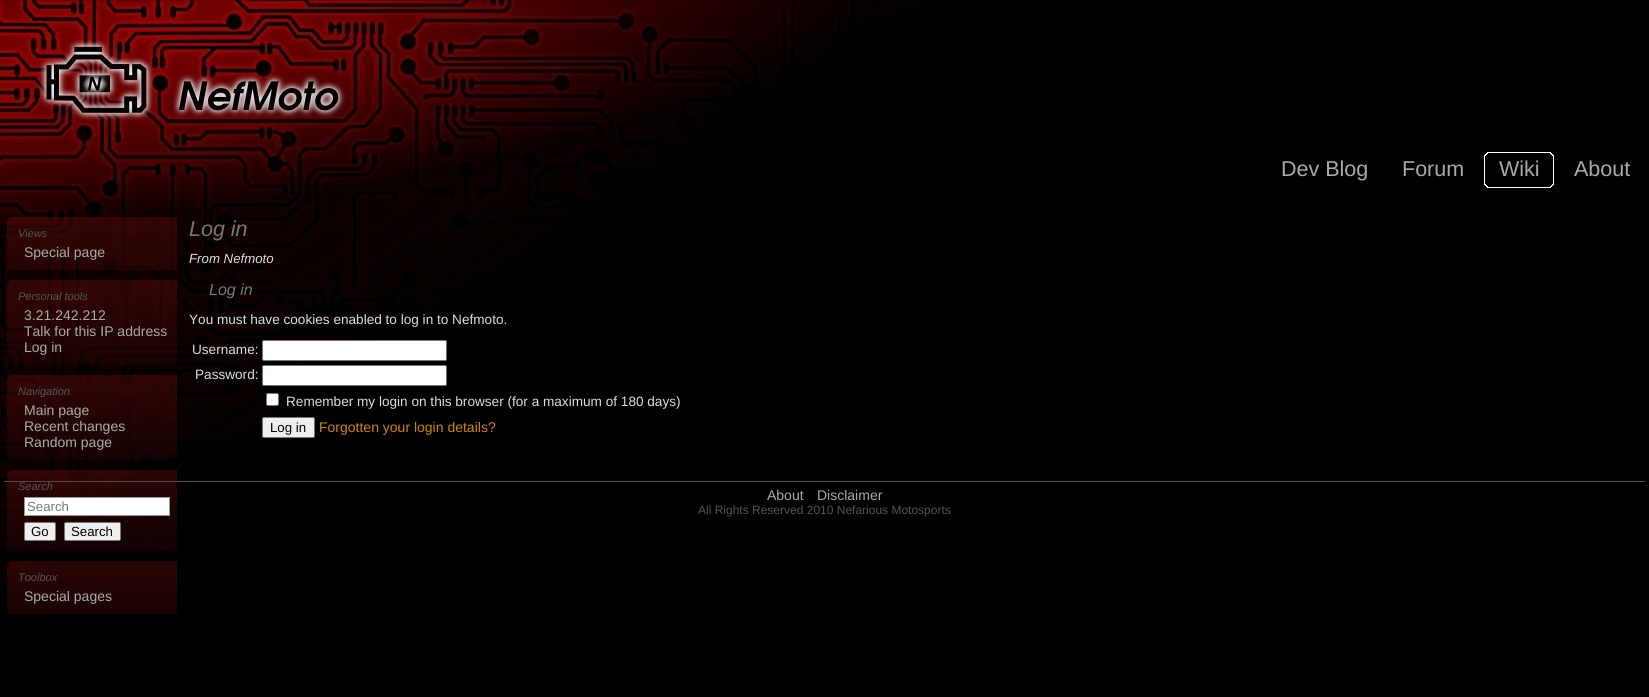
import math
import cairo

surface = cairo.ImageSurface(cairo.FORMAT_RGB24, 1649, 697)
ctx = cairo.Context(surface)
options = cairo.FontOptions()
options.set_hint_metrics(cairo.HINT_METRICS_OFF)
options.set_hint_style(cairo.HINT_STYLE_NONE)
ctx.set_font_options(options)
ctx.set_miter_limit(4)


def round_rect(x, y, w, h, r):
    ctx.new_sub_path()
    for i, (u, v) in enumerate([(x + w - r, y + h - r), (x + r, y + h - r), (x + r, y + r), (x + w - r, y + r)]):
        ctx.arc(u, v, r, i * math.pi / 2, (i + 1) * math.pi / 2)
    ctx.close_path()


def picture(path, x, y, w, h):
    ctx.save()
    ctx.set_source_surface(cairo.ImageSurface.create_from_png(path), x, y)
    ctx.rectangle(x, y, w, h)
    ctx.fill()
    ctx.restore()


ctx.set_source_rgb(0, 0, 0)
ctx.paint()
picture("img1.png", 0, 0, 980, 582)
ctx.select_font_face("Liberation Sans")
ctx.set_font_size(21.5)
ctx.set_source_rgb(0.667, 0.667, 0.667)
ctx.move_to(1281, 176)
ctx.show_text("Dev Blog")
ctx.move_to(1402, 176)
ctx.show_text("Forum")
picture("img2.png", 1548, 152, 6, 36)
picture("img3.png", 1484, 152, 64, 36)
ctx.move_to(1499, 176)
ctx.show_text("Wiki")
ctx.move_to(1574, 176)
ctx.show_text("About")
picture("img4.png", 7, 217, 170, 53)
ctx.select_font_face("Liberation Sans", cairo.FONT_SLANT_ITALIC)
ctx.set_font_size(11)
ctx.set_source_rgb(0.333, 0.333, 0.333)
ctx.move_to(18, 237)
ctx.show_text("Views")
ctx.select_font_face("Liberation Sans")
ctx.set_font_size(14)
ctx.set_source_rgb(0.667, 0.667, 0.667)
ctx.move_to(24, 257)
ctx.show_text("Special page")
picture("img5.png", 7, 280, 170, 85)
ctx.select_font_face("Liberation Sans", cairo.FONT_SLANT_ITALIC)
ctx.set_font_size(11)
ctx.set_source_rgb(0.333, 0.333, 0.333)
ctx.move_to(18, 300)
ctx.show_text("Personal tools")
ctx.select_font_face("Liberation Sans")
ctx.set_font_size(14)
ctx.set_source_rgb(0.667, 0.667, 0.667)
ctx.move_to(24, 320)
ctx.show_text("3.21.242.212")
ctx.move_to(24, 336)
ctx.show_text("Talk for this IP address")
ctx.move_to(24, 352)
ctx.show_text("Log in")
picture("img6.png", 7, 375, 170, 85)
ctx.select_font_face("Liberation Sans", cairo.FONT_SLANT_ITALIC)
ctx.set_font_size(11)
ctx.set_source_rgb(0.333, 0.333, 0.333)
ctx.move_to(18, 395)
ctx.show_text("Navigation")
ctx.select_font_face("Liberation Sans")
ctx.set_font_size(14)
ctx.set_source_rgb(0.667, 0.667, 0.667)
ctx.move_to(24, 415)
ctx.show_text("Main page")
ctx.move_to(24, 431)
ctx.show_text("Recent changes")
ctx.move_to(24, 447)
ctx.show_text("Random page")
ctx.set_source_rgb(0.333, 0.333, 0.333)
ctx.rectangle(4, 481, 1641, 1)
ctx.fill()
picture("img7.png", 7, 470, 170, 81)
ctx.select_font_face("Liberation Sans", cairo.FONT_SLANT_ITALIC)
ctx.set_font_size(11)
ctx.move_to(18, 490)
ctx.show_text("Search")
ctx.set_source_rgb(1, 1, 1)
ctx.rectangle(24.5, 497.5, 145, 18)
ctx.fill_preserve()
ctx.set_source_rgb(0.6, 0.6, 0.6)
ctx.set_line_width(1)
ctx.stroke()
ctx.select_font_face("Liberation Sans")
ctx.set_font_size(13.25)
ctx.set_source_rgb(0.467, 0.467, 0.467)
ctx.move_to(27, 511)
ctx.show_text("Search")
ctx.set_source_rgb(0.937, 0.937, 0.937)
round_rect(24.5, 522.5, 31, 18, 1.5)
ctx.fill_preserve()
ctx.set_source_rgb(0.463, 0.463, 0.463)
ctx.stroke()
ctx.set_source_rgb(0, 0, 0)
ctx.move_to(31, 536)
ctx.show_text("Go")
ctx.set_source_rgb(0.937, 0.937, 0.937)
round_rect(64.5, 522.5, 56, 18, 1.5)
ctx.fill_preserve()
ctx.set_source_rgb(0.463, 0.463, 0.463)
ctx.stroke()
ctx.set_source_rgb(0, 0, 0)
ctx.move_to(71, 536)
ctx.show_text("Search")
picture("img8.png", 7, 561, 170, 53)
ctx.select_font_face("Liberation Sans", cairo.FONT_SLANT_ITALIC)
ctx.set_font_size(11)
ctx.set_source_rgb(0.333, 0.333, 0.333)
ctx.move_to(18, 581)
ctx.show_text("Toolbox")
ctx.select_font_face("Liberation Sans")
ctx.set_font_size(14)
ctx.set_source_rgb(0.667, 0.667, 0.667)
ctx.move_to(24, 601)
ctx.show_text("Special pages")
ctx.select_font_face("Liberation Sans", cairo.FONT_SLANT_ITALIC)
ctx.set_font_size(21.5)
ctx.set_source_rgb(0.467, 0.467, 0.467)
ctx.move_to(189, 236)
ctx.show_text("Log in")
ctx.set_font_size(13.25)
ctx.set_source_rgb(0.867, 0.867, 0.867)
ctx.move_to(189, 263)
ctx.show_text("From Nefmoto")
ctx.set_font_size(16)
ctx.set_source_rgb(0.467, 0.467, 0.467)
ctx.move_to(209, 295)
ctx.show_text("Log in")
ctx.select_font_face("Liberation Sans")
ctx.set_font_size(13.6)
ctx.set_source_rgb(0.867, 0.867, 0.867)
ctx.move_to(189, 324)
ctx.show_text("You must have cookies enabled to log in to Nefmoto.")
ctx.move_to(192, 354)
ctx.show_text("Username:")
ctx.set_source_rgb(1, 1, 1)
round_rect(262.5, 340.5, 184, 20, 1.5)
ctx.fill_preserve()
ctx.set_source_rgb(0.463, 0.463, 0.463)
ctx.stroke()
ctx.set_source_rgb(0.867, 0.867, 0.867)
ctx.move_to(195, 379)
ctx.show_text("Password:")
ctx.set_source_rgb(1, 1, 1)
round_rect(262.5, 365.5, 184, 20, 1.5)
ctx.fill_preserve()
ctx.set_source_rgb(0.463, 0.463, 0.463)
ctx.stroke()
ctx.set_source_rgb(1, 1, 1)
round_rect(266.5, 393.5, 12, 12, 1.5)
ctx.fill_preserve()
ctx.set_source_rgb(0.463, 0.463, 0.463)
ctx.stroke()
ctx.set_source_rgb(0.867, 0.867, 0.867)
ctx.move_to(286, 406)
ctx.show_text("Remember my login on this browser (for a maximum of 180 days)")
ctx.set_source_rgb(0.937, 0.937, 0.937)
round_rect(262.5, 417.5, 52, 20, 1.5)
ctx.fill_preserve()
ctx.set_source_rgb(0.463, 0.463, 0.463)
ctx.stroke()
ctx.set_font_size(13.25)
ctx.set_source_rgb(0, 0, 0)
ctx.move_to(270, 432)
ctx.show_text("Log in")
ctx.set_font_size(14)
ctx.set_source_rgb(0.8, 0.529, 0)
ctx.move_to(319, 432)
ctx.show_text("Forgotten your login details?")
ctx.set_source_rgb(0.667, 0.667, 0.667)
ctx.move_to(767, 500)
ctx.show_text("About")
ctx.move_to(817, 500)
ctx.show_text("Disclaimer")
ctx.set_font_size(12)
ctx.set_source_rgb(0.333, 0.333, 0.333)
ctx.move_to(698, 514)
ctx.show_text("All Rights Reserved 2010 Nefarious Motosports")
surface.write_to_png("page.png")
